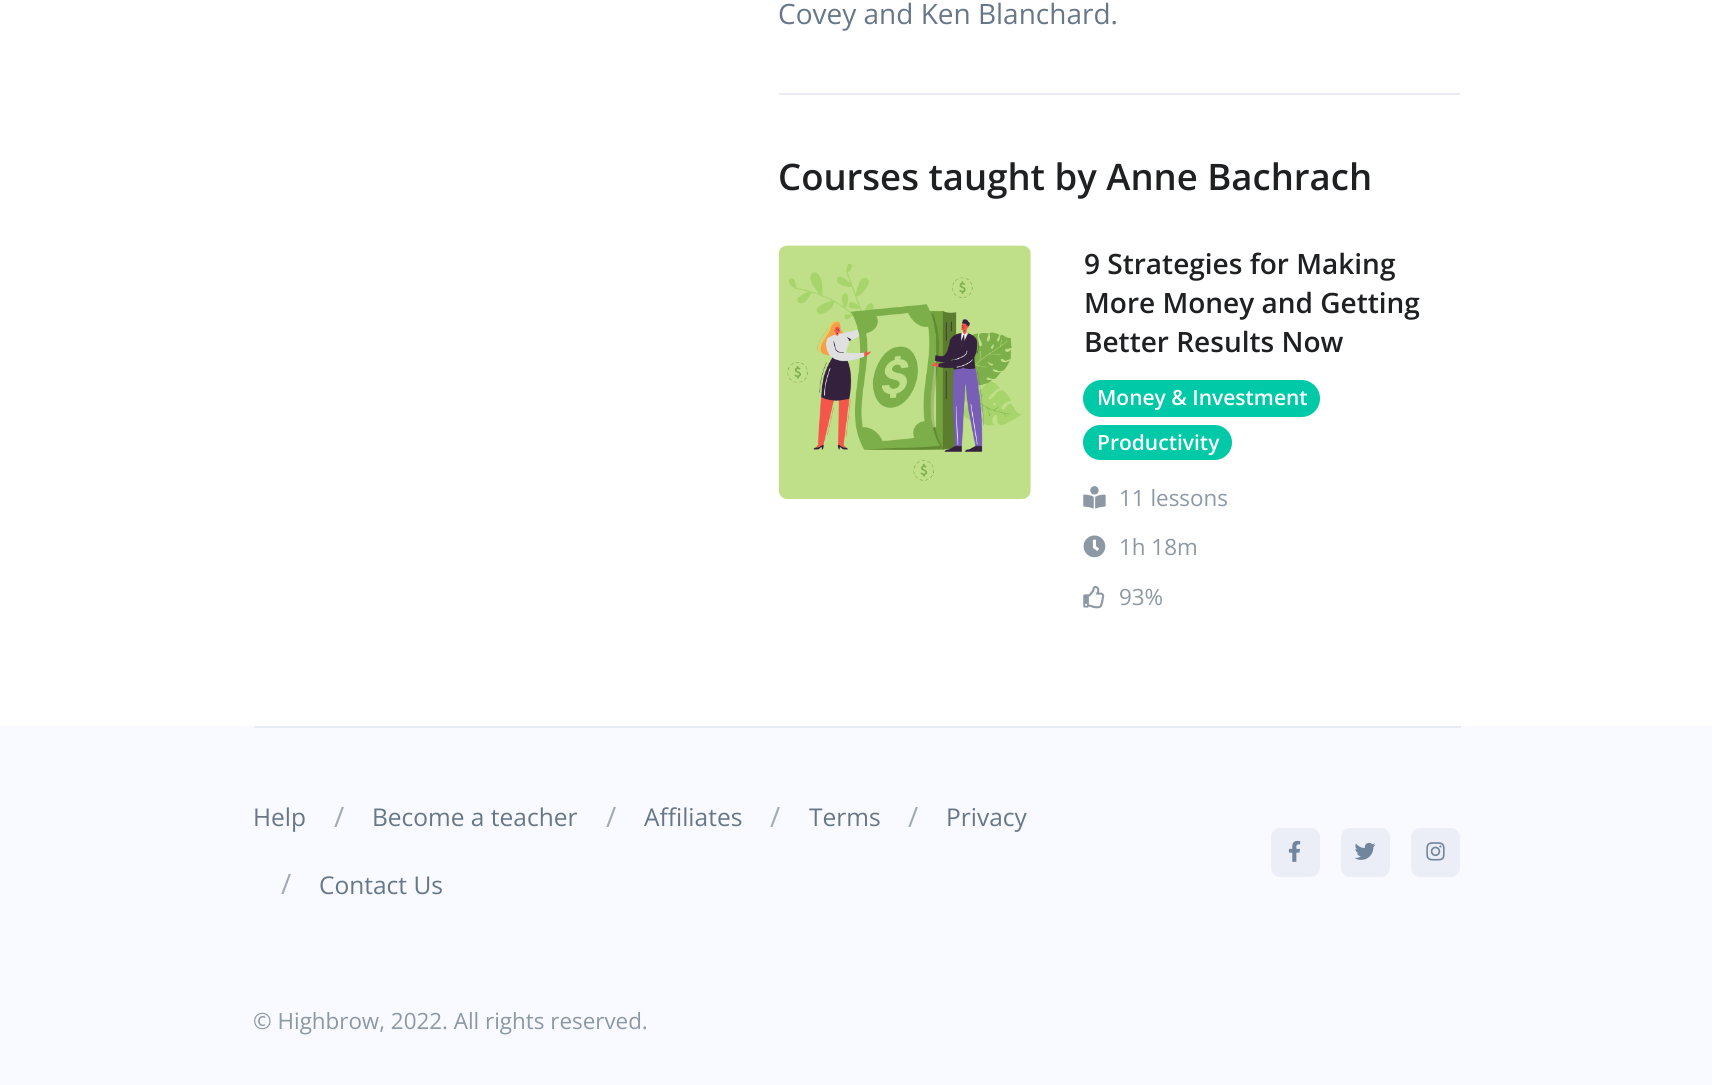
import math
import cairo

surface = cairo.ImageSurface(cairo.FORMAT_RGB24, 1712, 1085)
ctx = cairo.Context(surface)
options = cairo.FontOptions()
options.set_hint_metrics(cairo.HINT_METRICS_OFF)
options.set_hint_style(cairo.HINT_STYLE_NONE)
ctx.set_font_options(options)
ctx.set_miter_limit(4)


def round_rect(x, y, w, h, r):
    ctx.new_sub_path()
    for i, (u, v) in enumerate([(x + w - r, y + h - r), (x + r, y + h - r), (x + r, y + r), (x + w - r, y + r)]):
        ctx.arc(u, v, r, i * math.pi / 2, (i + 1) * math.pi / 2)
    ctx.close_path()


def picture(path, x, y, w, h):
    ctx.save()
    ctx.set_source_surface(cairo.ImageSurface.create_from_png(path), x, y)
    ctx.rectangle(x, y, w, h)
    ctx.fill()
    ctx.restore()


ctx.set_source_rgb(1, 1, 1)
ctx.paint()
ctx.select_font_face("Open Sans")
ctx.set_font_size(28)
ctx.set_source_rgb(0.404, 0.467, 0.533)
ctx.move_to(778, 24)
ctx.show_text("Covey and Ken Blanchard.")
ctx.set_source_rgb(0.906, 0.918, 0.953)
ctx.rectangle(779, 93, 681, 2)
ctx.fill()
ctx.select_font_face("Open Sans SemiBold")
ctx.set_font_size(36.5)
ctx.set_source_rgb(0.118, 0.125, 0.133)
ctx.move_to(778, 190)
ctx.show_text("Courses taught by Anne Bachrach")
picture("img1.png", 778, 245, 253, 254)
ctx.set_font_size(28)
ctx.move_to(1084, 274)
ctx.show_text("9 Strategies for Making")
ctx.move_to(1084, 313)
ctx.show_text("More Money and Getting")
ctx.move_to(1084, 352)
ctx.show_text("Better Results Now")
ctx.set_source_rgb(0, 0.788, 0.655)
round_rect(1083, 380, 237, 37, 18.5)
ctx.fill()
ctx.set_font_size(21)
ctx.set_source_rgb(1, 1, 1)
ctx.move_to(1097, 405)
ctx.show_text("Money & Investment")
ctx.set_source_rgb(0, 0.788, 0.655)
round_rect(1083, 425, 149, 35, 17.5)
ctx.fill()
ctx.set_source_rgb(1, 1, 1)
ctx.move_to(1097, 450)
ctx.show_text("Productivity")
picture("img2.png", 1083, 486, 23, 23)
ctx.select_font_face("Open Sans")
ctx.set_font_size(22.4)
ctx.set_source_rgb(0.549, 0.596, 0.643)
ctx.move_to(1119, 506)
ctx.show_text("11 lessons")
picture("img3.png", 1083, 535, 23, 23)
ctx.move_to(1119, 555)
ctx.show_text("1h 18m")
picture("img4.png", 1083, 585, 22, 24)
ctx.move_to(1119, 605)
ctx.show_text("93%")
ctx.set_source_rgb(0.969, 0.98, 1)
ctx.rectangle(0, 726, 1712, 359)
ctx.fill()
ctx.set_source_rgb(0.906, 0.918, 0.953)
ctx.rectangle(254, 726, 1207, 2)
ctx.fill()
ctx.set_font_size(24.5)
ctx.set_source_rgb(0.404, 0.467, 0.533)
ctx.move_to(253, 826)
ctx.show_text("Help")
ctx.set_font_size(28)
ctx.set_source_rgb(0.631, 0.671, 0.722)
ctx.move_to(334, 827)
ctx.show_text("/")
ctx.set_font_size(24.5)
ctx.set_source_rgb(0.404, 0.467, 0.533)
ctx.move_to(372, 826)
ctx.show_text("Become a teacher")
ctx.set_font_size(28)
ctx.set_source_rgb(0.631, 0.671, 0.722)
ctx.move_to(606, 827)
ctx.show_text("/")
ctx.set_font_size(24.5)
ctx.set_source_rgb(0.404, 0.467, 0.533)
ctx.move_to(644, 826)
ctx.show_text("Affiliates")
ctx.set_font_size(28)
ctx.set_source_rgb(0.631, 0.671, 0.722)
ctx.move_to(770, 827)
ctx.show_text("/")
ctx.set_font_size(24.5)
ctx.set_source_rgb(0.404, 0.467, 0.533)
ctx.move_to(809, 826)
ctx.show_text("Terms")
ctx.set_font_size(28)
ctx.set_source_rgb(0.631, 0.671, 0.722)
ctx.move_to(908, 827)
ctx.show_text("/")
ctx.set_font_size(24.5)
ctx.set_source_rgb(0.404, 0.467, 0.533)
ctx.move_to(946, 826)
ctx.show_text("Privacy")
ctx.set_font_size(28)
ctx.set_source_rgb(0.631, 0.671, 0.722)
ctx.move_to(281, 894)
ctx.show_text("/")
ctx.set_font_size(24.5)
ctx.set_source_rgb(0.404, 0.467, 0.533)
ctx.move_to(319, 894)
ctx.show_text("Contact Us")
ctx.set_source_rgb(0.918, 0.933, 0.961)
round_rect(1271, 828, 49, 49, 9)
ctx.fill()
picture("img5.png", 1288, 840, 13, 22)
round_rect(1341, 828, 49, 49, 9)
ctx.fill()
picture("img6.png", 1354, 842, 22, 18)
round_rect(1411, 828, 49, 49, 9)
ctx.fill()
picture("img7.png", 1426, 842, 19, 19)
ctx.set_font_size(22.4)
ctx.set_source_rgb(0.549, 0.596, 0.643)
ctx.move_to(253, 1029)
ctx.show_text("© Highbrow, 2022. All rights reserved.")
surface.write_to_png("page.png")
